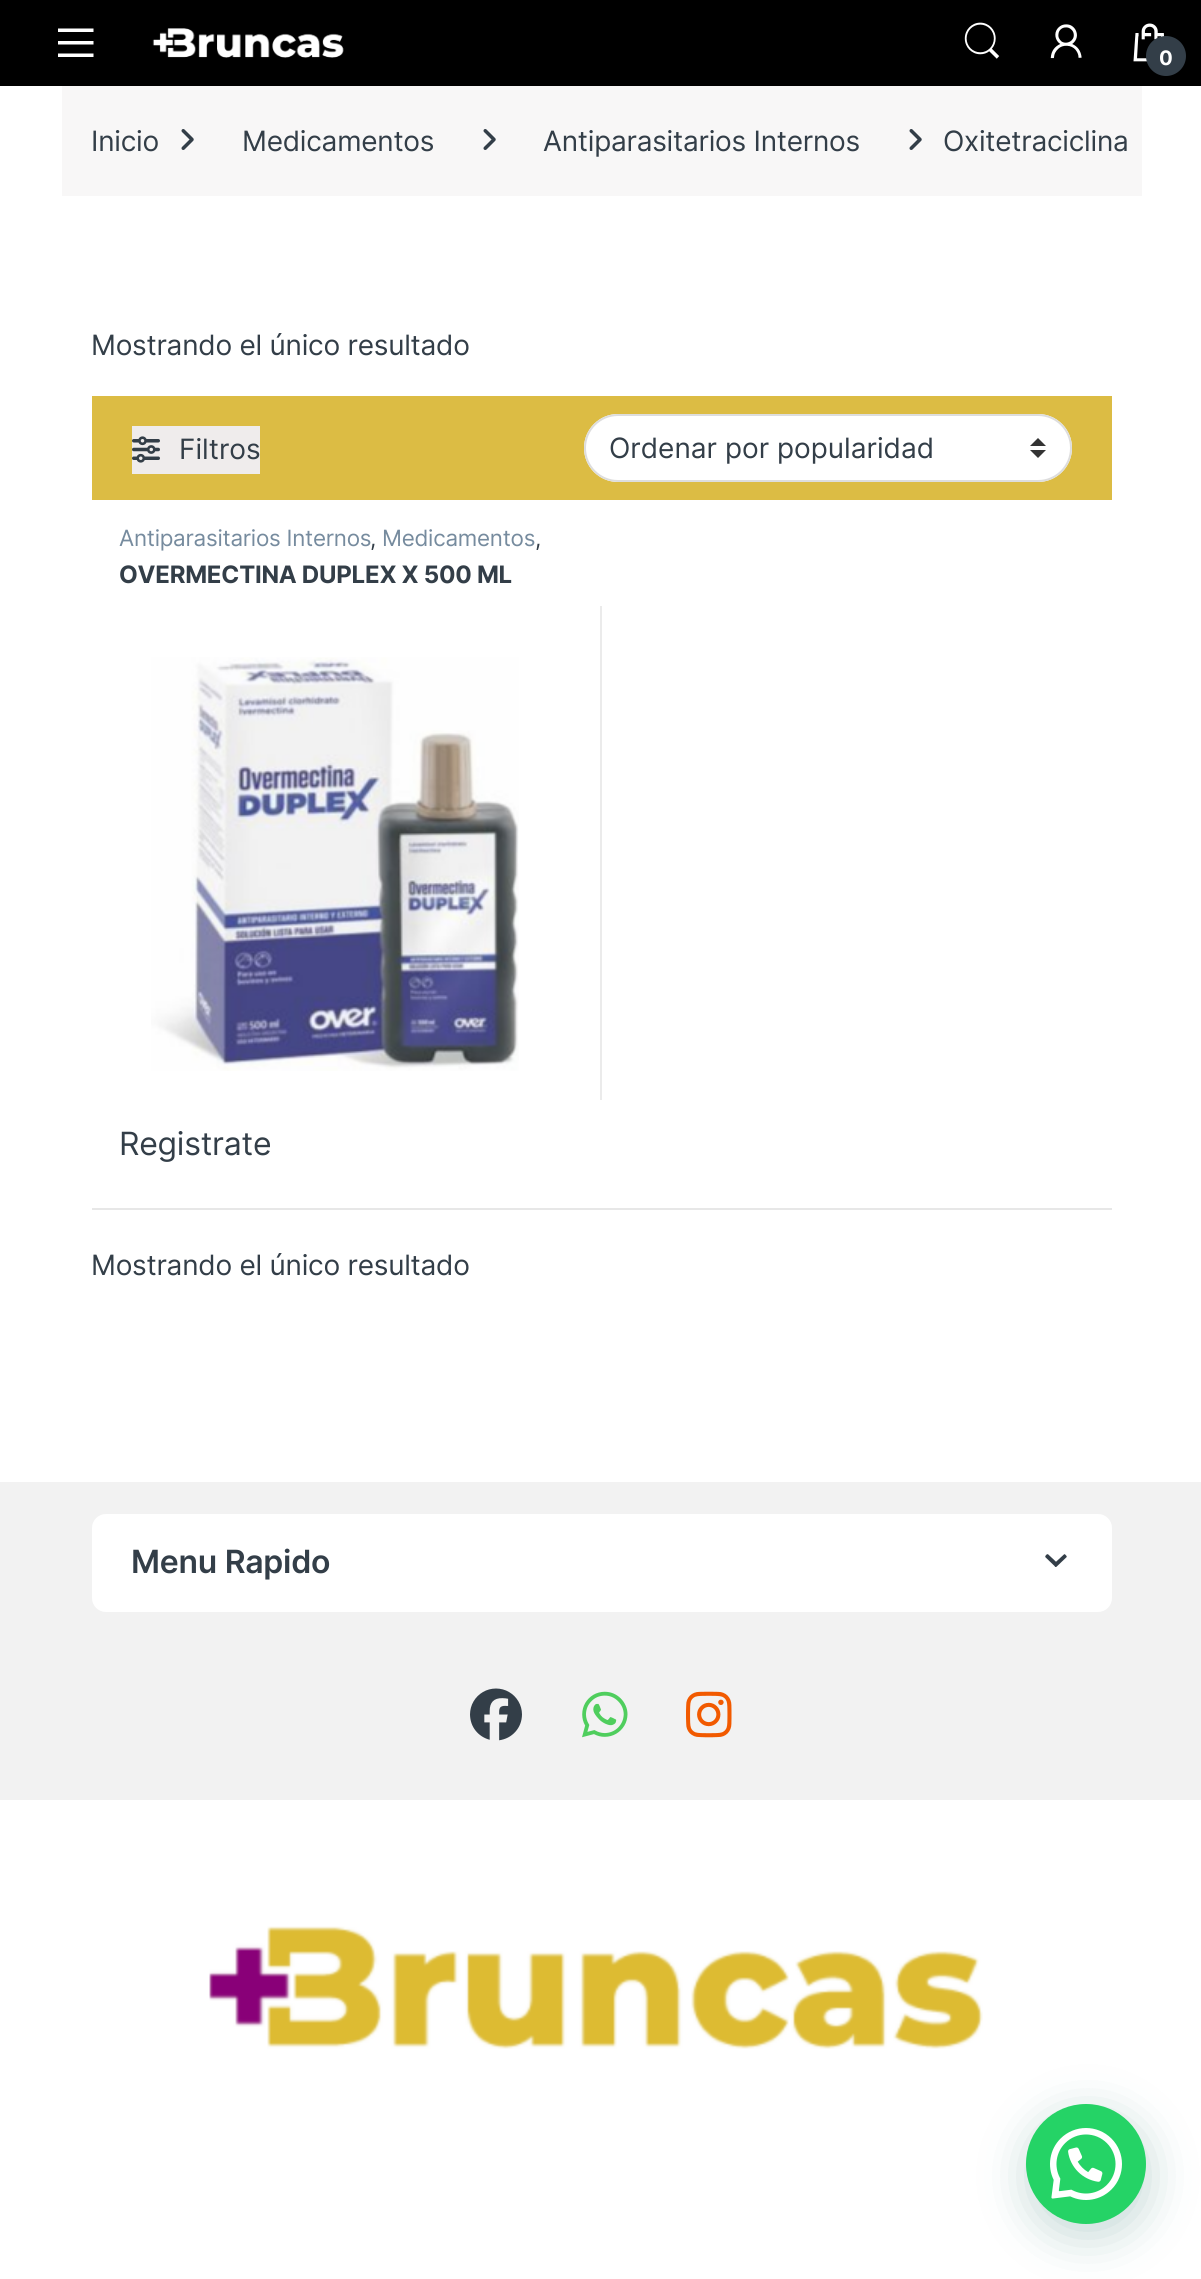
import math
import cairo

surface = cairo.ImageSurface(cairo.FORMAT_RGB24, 1201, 2279)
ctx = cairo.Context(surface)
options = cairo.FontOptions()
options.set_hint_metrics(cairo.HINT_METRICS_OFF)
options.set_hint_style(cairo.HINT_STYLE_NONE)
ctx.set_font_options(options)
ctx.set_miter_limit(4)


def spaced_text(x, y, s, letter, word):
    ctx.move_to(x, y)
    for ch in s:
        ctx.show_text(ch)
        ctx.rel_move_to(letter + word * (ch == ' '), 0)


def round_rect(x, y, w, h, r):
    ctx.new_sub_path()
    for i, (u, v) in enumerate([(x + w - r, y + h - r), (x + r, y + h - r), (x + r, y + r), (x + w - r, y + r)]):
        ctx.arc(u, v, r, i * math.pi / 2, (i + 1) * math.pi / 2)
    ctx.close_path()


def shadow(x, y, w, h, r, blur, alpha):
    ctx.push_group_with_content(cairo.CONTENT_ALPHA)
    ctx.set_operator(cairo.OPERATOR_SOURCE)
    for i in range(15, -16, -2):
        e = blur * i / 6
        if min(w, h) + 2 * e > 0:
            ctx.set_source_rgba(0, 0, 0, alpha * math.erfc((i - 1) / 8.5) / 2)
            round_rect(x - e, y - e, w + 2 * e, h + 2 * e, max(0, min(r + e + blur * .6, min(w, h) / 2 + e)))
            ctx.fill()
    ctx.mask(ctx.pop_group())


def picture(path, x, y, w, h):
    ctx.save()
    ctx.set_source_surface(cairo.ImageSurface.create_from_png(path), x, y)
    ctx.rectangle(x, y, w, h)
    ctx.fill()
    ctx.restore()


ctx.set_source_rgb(1, 1, 1)
ctx.paint()
ctx.set_source_rgb(0, 0, 0)
ctx.rectangle(0, 0, 1201, 86)
ctx.fill()
ctx.set_source_rgb(1, 1, 1)
ctx.new_path()
ctx.move_to(58, 57)
ctx.line_to(58, 53.5)
ctx.line_to(93.5, 53.5)
ctx.line_to(93.5, 57)
ctx.close_path()
ctx.move_to(58, 41)
ctx.line_to(93.5, 41)
ctx.line_to(93.5, 44.5)
ctx.line_to(58, 44.5)
ctx.close_path()
ctx.move_to(58, 28.5)
ctx.line_to(93.5, 28.5)
ctx.line_to(93.5, 32)
ctx.line_to(58, 32)
ctx.close_path()
ctx.fill()
picture("img1.png", 152, 28, 192, 30)
picture("img2.png", 964, 22, 36, 37)
picture("img3.png", 1050, 24, 32, 35)
picture("img4.png", 1133, 23, 32, 39)
ctx.set_source_rgb(0.2, 0.243, 0.282)
ctx.arc(1166, 56, 20, 0, 2 * math.pi)
ctx.fill()
ctx.select_font_face("Inter", cairo.FONT_SLANT_NORMAL, cairo.FONT_WEIGHT_BOLD)
ctx.set_font_size(20)
ctx.set_source_rgb(1, 1, 1)
spaced_text(1159, 65, "0", -0.25, 0)
ctx.set_source_rgb(0.969, 0.965, 0.965)
ctx.rectangle(62, 86, 1080, 110)
ctx.fill()
ctx.select_font_face("Inter")
ctx.set_font_size(28)
ctx.set_source_rgb(0.2, 0.243, 0.282)
spaced_text(91, 151, "Inicio", -0.25, 0)
picture("img5.png", 181, 129, 13, 21)
spaced_text(242, 151, "Medicamentos", -0.25, 0)
picture("img5.png", 483, 129, 13, 21)
spaced_text(543, 151, "Antiparasitarios Internos", -0.25, 0)
picture("img5.png", 909, 129, 13, 21)
spaced_text(943, 151, "Oxitetraciclina", -0.25, 0)
spaced_text(91, 355, "Mostrando el único resultado", -0.25, 0)
ctx.set_source_rgb(0.863, 0.737, 0.267)
ctx.rectangle(92, 396, 1020, 104)
ctx.fill()
ctx.set_source_rgb(0.937, 0.925, 0.925)
ctx.rectangle(132, 426, 128, 48)
ctx.fill()
picture("img6.png", 132, 436, 28, 27)
ctx.set_source_rgb(0.2, 0.243, 0.282)
ctx.move_to(179, 459)
ctx.show_text("Filtros")
ctx.set_source_rgb(1, 1, 1)
round_rect(584, 414, 488, 68, 34)
ctx.fill()
picture("img7.png", 1030, 438, 16, 20)
round_rect(585, 415, 486, 66, 33)
ctx.set_source_rgb(0.867, 0.867, 0.867)
ctx.stroke()
ctx.set_source_rgb(0.2, 0.243, 0.282)
ctx.move_to(609, 458)
ctx.show_text("Ordenar por popularidad")
ctx.set_font_size(22.4)
ctx.set_source_rgb(0.463, 0.545, 0.62)
spaced_text(119, 546, "Antiparasitarios Internos", -0.25, 0)
ctx.set_source_rgb(0.2, 0.243, 0.282)
spaced_text(370, 546, ",", -0.25, 0)
ctx.set_source_rgb(0.463, 0.545, 0.62)
spaced_text(382, 546, "Medicamentos", -0.25, 0)
ctx.set_source_rgb(0.2, 0.243, 0.282)
spaced_text(535, 546, ",", -0.25, 0)
ctx.select_font_face("Inter", cairo.FONT_SLANT_NORMAL, cairo.FONT_WEIGHT_BOLD)
ctx.set_font_size(24)
spaced_text(119, 583, "OVERMECTINA DUPLEX X 500 ML", -0.25, 0)
picture("img8.png", 151, 657, 368, 414)
ctx.select_font_face("Inter")
ctx.set_font_size(32)
spaced_text(119, 1155, "Registrate", -0.25, 0)
ctx.set_source_rgb(0.918, 0.918, 0.918)
ctx.rectangle(600, 606, 2, 494)
ctx.fill()
ctx.set_source_rgb(0.906, 0.906, 0.906)
ctx.rectangle(92, 1208, 1020, 2)
ctx.fill()
ctx.set_font_size(28)
ctx.set_source_rgb(0.2, 0.243, 0.282)
spaced_text(91, 1275, "Mostrando el único resultado", -0.25, 0)
ctx.set_source_rgb(0.949, 0.949, 0.949)
ctx.rectangle(0, 1482, 1201, 318)
ctx.fill()
ctx.set_source_rgb(1, 1, 1)
round_rect(92, 1514, 1020, 98, 14)
ctx.fill()
ctx.select_font_face("Inter SemiBold")
ctx.set_font_size(32)
ctx.set_source_rgb(0.2, 0.243, 0.282)
spaced_text(131, 1573, "Menu Rapido", -0.25, 0)
picture("img9.png", 1045, 1554, 22, 13)
picture("img10.png", 470, 1688, 52, 53)
picture("img11.png", 582, 1691, 46, 47)
picture("img12.png", 686, 1691, 46, 47)
picture("img13.png", 209, 1926, 774, 123)
ctx.set_source_rgb(0.027, 0.369, 0.329)
shadow(1028, 2116, 120, 120, 60, 24, 0.24)
ctx.set_source_rgb(0.145, 0.827, 0.4)
ctx.arc(1086, 2164, 60, 0, 2 * math.pi)
ctx.fill()
picture("img14.png", 1050, 2128, 72, 72)
surface.write_to_png("page.png")
